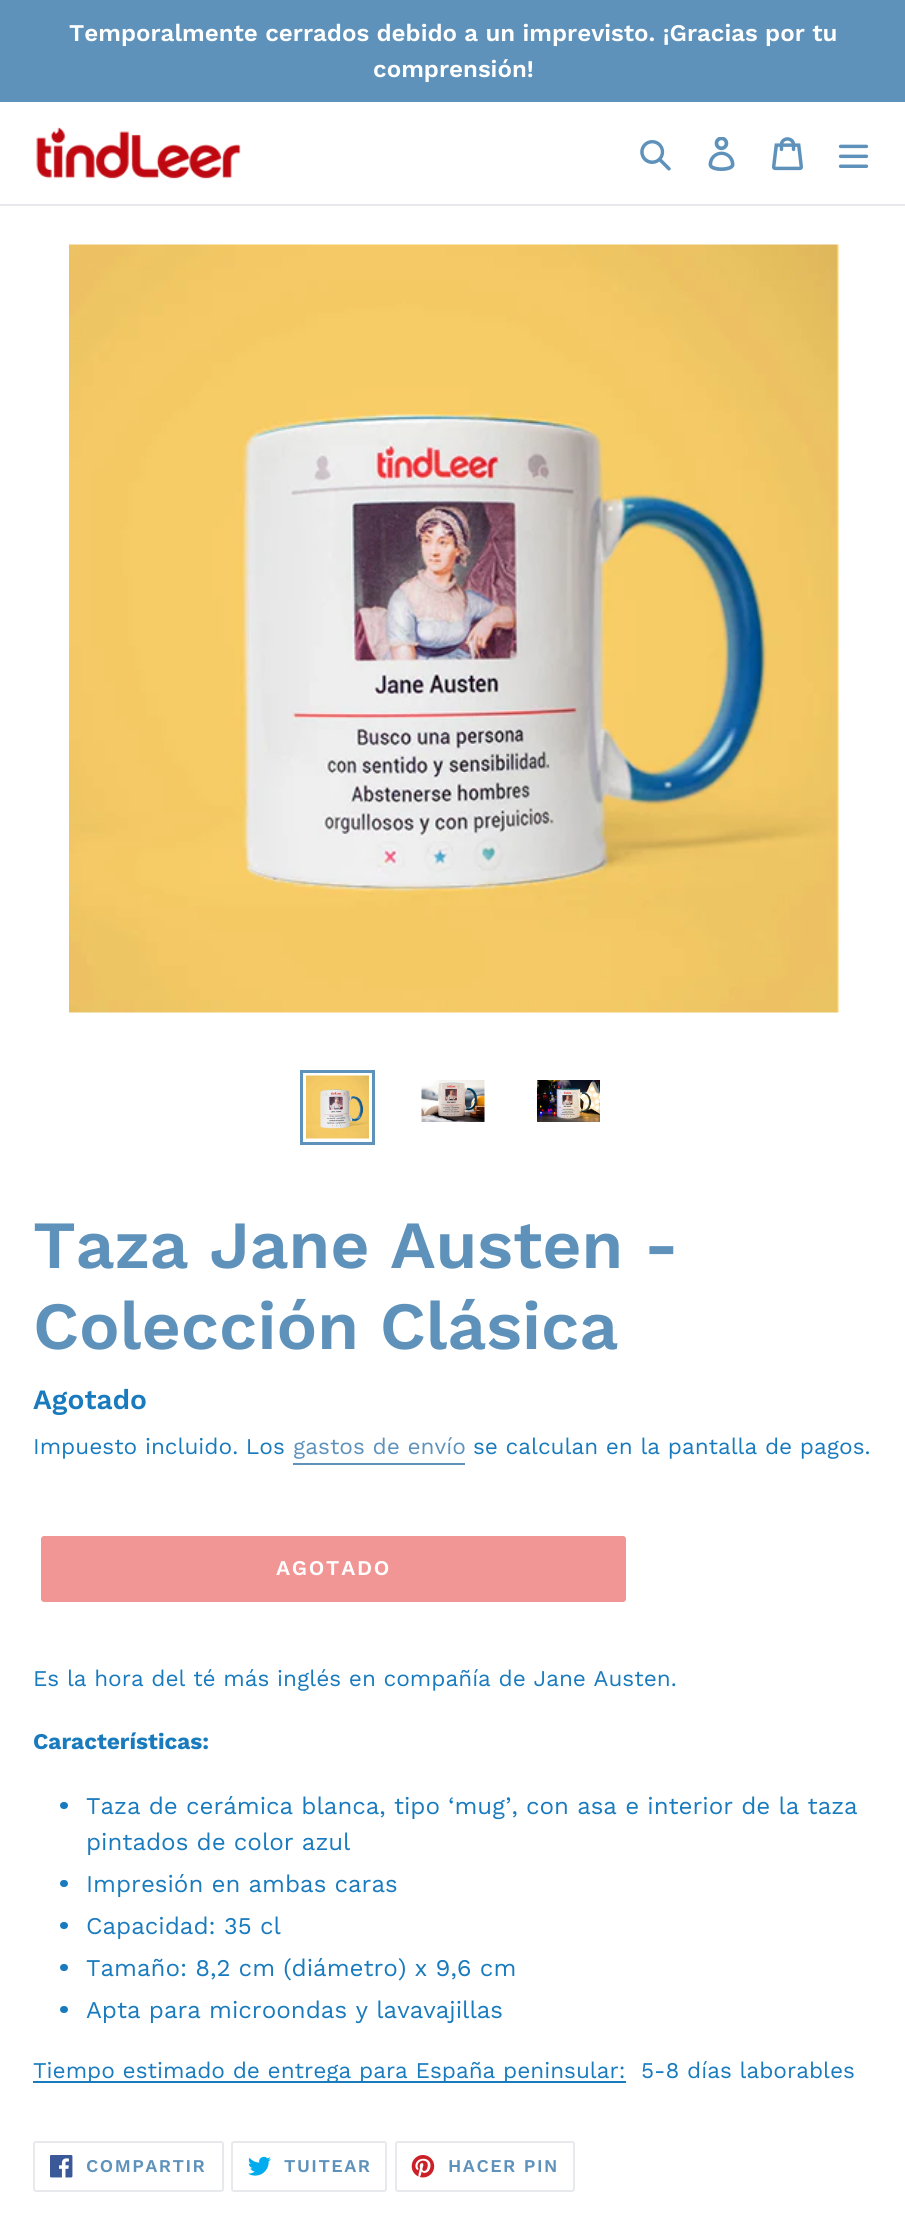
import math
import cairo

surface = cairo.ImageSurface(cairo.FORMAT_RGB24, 905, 2213)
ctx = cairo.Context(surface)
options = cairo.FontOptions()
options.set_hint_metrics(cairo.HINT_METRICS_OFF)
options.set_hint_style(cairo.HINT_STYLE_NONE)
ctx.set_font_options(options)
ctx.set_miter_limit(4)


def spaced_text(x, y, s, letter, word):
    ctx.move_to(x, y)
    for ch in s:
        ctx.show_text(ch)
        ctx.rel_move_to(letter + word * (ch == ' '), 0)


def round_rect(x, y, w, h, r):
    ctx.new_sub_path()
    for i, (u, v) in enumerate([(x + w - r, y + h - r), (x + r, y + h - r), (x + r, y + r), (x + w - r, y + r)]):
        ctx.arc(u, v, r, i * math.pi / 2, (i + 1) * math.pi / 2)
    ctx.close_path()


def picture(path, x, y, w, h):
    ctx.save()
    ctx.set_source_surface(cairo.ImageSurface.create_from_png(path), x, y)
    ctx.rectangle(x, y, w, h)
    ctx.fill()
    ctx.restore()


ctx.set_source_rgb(1, 1, 1)
ctx.paint()
ctx.set_source_rgb(0.369, 0.573, 0.733)
ctx.rectangle(0, 0, 905, 102)
ctx.fill()
ctx.select_font_face("Work Sans SemiBold")
ctx.set_font_size(24)
ctx.set_source_rgb(1, 1, 1)
ctx.move_to(69, 41)
ctx.show_text("Temporalmente cerrados debido a un imprevisto. ¡Gracias por tu")
ctx.move_to(373, 77)
ctx.show_text("comprensión!")
ctx.set_source_rgb(0.91, 0.914, 0.922)
ctx.rectangle(0, 204, 905, 2)
ctx.fill()
picture("img1.png", 36, 127, 205, 52)
picture("img2.png", 640, 140, 31, 31)
picture("img3.png", 708, 137, 27, 34)
picture("img4.png", 772, 137, 31, 34)
picture("img5.png", 838, 144, 31, 24)
picture("img6.png", 69, 244, 770, 769)
ctx.rectangle(301.5, 1071.5, 72, 72)
ctx.set_source_rgb(0.369, 0.573, 0.733)
ctx.set_line_width(3)
ctx.stroke()
picture("img7.png", 306, 1075, 63, 64)
picture("img8.png", 421, 1080, 64, 42)
picture("img9.png", 537, 1080, 63, 42)
ctx.set_font_size(67.5)
ctx.move_to(33, 1268)
ctx.show_text("Taza Jane Austen -")
ctx.move_to(33, 1349)
ctx.show_text("Colección Clásica")
ctx.set_font_size(28)
ctx.set_source_rgb(0.098, 0.482, 0.741)
ctx.move_to(33, 1409)
ctx.show_text("Agotado")
ctx.select_font_face("Work Sans")
ctx.set_font_size(22.5)
ctx.move_to(33, 1454)
ctx.show_text("Impuesto incluido. Los")
ctx.set_source_rgb(0.369, 0.573, 0.733)
ctx.move_to(293, 1454)
ctx.show_text("gastos de envío")
ctx.rectangle(293, 1463, 172, 2)
ctx.fill()
ctx.set_source_rgb(0.098, 0.482, 0.741)
ctx.move_to(473, 1454)
ctx.show_text("se calculan en la pantalla de pagos.")
ctx.set_source_rgb(0.945, 0.588, 0.584)
round_rect(41, 1536, 585, 66, 3)
ctx.fill()
ctx.select_font_face("Work Sans SemiBold")
ctx.set_font_size(21)
ctx.set_source_rgb(1, 1, 1)
spaced_text(276, 1575, "AGOTADO", 1.75, 0)
ctx.select_font_face("Work Sans")
ctx.set_font_size(22.5)
ctx.set_source_rgb(0.098, 0.482, 0.741)
ctx.move_to(33, 1686)
ctx.show_text("Es la hora del té más inglés en compañía de Jane Austen.")
ctx.select_font_face("Work Sans", cairo.FONT_SLANT_NORMAL, cairo.FONT_WEIGHT_BOLD)
ctx.move_to(33, 1749)
ctx.show_text("Características:")
round_rect(60, 1802, 8, 7, 3.5)
ctx.fill()
ctx.select_font_face("Work Sans")
ctx.set_font_size(24)
ctx.move_to(86, 1814)
ctx.show_text("Taza de cerámica blanca, tipo ‘mug’, con asa e interior de la taza")
ctx.move_to(86, 1850)
ctx.show_text("pintados de color azul")
round_rect(60, 1880, 8, 7, 3.5)
ctx.fill()
ctx.move_to(86, 1892)
ctx.show_text("Impresión en ambas caras")
round_rect(60, 1922, 8, 7, 3.5)
ctx.fill()
ctx.move_to(86, 1934)
ctx.show_text("Capacidad: 35 cl")
round_rect(60, 1964, 8, 7, 3.5)
ctx.fill()
ctx.move_to(86, 1976)
ctx.show_text("Tamaño: 8,2 cm (diámetro) x 9,6 cm")
round_rect(60, 2006, 8, 7, 3.5)
ctx.fill()
ctx.move_to(86, 2018)
ctx.show_text("Apta para microondas y lavavajillas")
ctx.rectangle(33, 2081, 593, 2)
ctx.fill()
ctx.set_font_size(22.5)
ctx.move_to(33, 2078)
ctx.show_text("Tiempo estimado de entrega para España peninsular:")
ctx.move_to(641, 2078)
ctx.show_text("5-8 días laborables")
round_rect(34, 2142, 189, 49, 2)
ctx.set_source_rgb(0.91, 0.914, 0.922)
ctx.set_line_width(2)
ctx.stroke()
picture("img10.png", 50, 2155, 23, 23)
ctx.select_font_face("Work Sans SemiBold")
ctx.set_font_size(18)
ctx.set_source_rgb(0.369, 0.573, 0.733)
spaced_text(86, 2172, "COMPARTIR", 1.5, 0)
round_rect(232, 2142, 154, 49, 2)
ctx.set_source_rgb(0.91, 0.914, 0.922)
ctx.stroke()
picture("img11.png", 248, 2156, 23, 20)
ctx.set_source_rgb(0.369, 0.573, 0.733)
spaced_text(284, 2172, "TUITEAR", 1.5, 0)
round_rect(396, 2142, 178, 49, 2)
ctx.set_source_rgb(0.91, 0.914, 0.922)
ctx.stroke()
picture("img12.png", 411, 2155, 24, 23)
ctx.set_source_rgb(0.369, 0.573, 0.733)
spaced_text(448, 2172, "HACER PIN", 1.5, 0)
surface.write_to_png("page.png")
